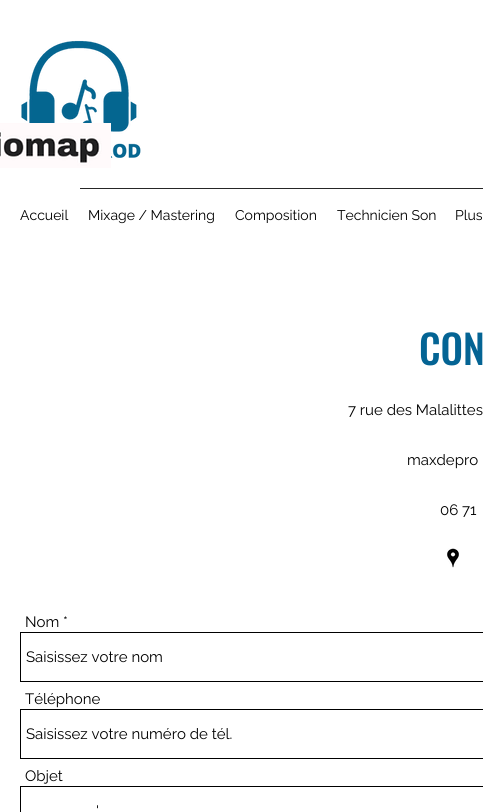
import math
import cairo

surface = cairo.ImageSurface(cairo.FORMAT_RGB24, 483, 812)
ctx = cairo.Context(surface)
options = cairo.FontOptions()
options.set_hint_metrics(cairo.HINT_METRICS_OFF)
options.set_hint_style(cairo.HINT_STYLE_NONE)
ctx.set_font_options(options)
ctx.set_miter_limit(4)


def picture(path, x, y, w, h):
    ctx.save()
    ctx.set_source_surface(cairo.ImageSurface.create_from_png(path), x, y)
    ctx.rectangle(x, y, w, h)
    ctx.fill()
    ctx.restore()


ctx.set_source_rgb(1, 1, 1)
ctx.paint()
picture("img1.png", 21, 40, 120, 118)
picture("img2.png", 0, 123, 111, 45)
ctx.set_source_rgb(0.149, 0.149, 0.149)
ctx.rectangle(80, 188, 403, 1)
ctx.fill()
ctx.select_font_face("Raleway")
ctx.set_font_size(14)
ctx.set_source_rgb(0, 0, 0)
ctx.move_to(20, 220)
ctx.show_text("Accueil")
ctx.move_to(88, 220)
ctx.show_text("Mixage / Mastering")
ctx.move_to(235, 220)
ctx.show_text("Composition")
ctx.move_to(337, 220)
ctx.show_text("Technicien Son")
ctx.move_to(455, 220)
ctx.show_text("Plus")
ctx.select_font_face("Oswald Medium")
ctx.set_font_size(40)
ctx.set_source_rgb(0.016, 0.392, 0.58)
ctx.move_to(419, 365)
ctx.show_text("CON")
ctx.select_font_face("Raleway")
ctx.set_font_size(15)
ctx.set_source_rgb(0, 0, 0)
ctx.move_to(348, 415)
ctx.show_text("7 rue des Malalittes")
ctx.move_to(407, 465)
ctx.show_text("maxdepro")
ctx.move_to(440, 515)
ctx.show_text("06 71")
picture("img3.png", 447, 548, 12, 20)
ctx.move_to(25, 627)
ctx.show_text("Nom *")
ctx.rectangle(20.5, 632.5, 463, 49)
ctx.set_line_width(1)
ctx.stroke()
ctx.move_to(26, 662)
ctx.show_text("Saisissez votre nom")
ctx.move_to(25, 704)
ctx.show_text("Téléphone")
ctx.rectangle(20.5, 709.5, 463, 49)
ctx.stroke()
ctx.move_to(26, 739)
ctx.show_text("Saisissez votre numéro de tél.")
ctx.move_to(25, 781)
ctx.show_text("Objet")
ctx.rectangle(20.5, 786.5, 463, 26)
ctx.stroke()
ctx.move_to(96, 816)
ctx.show_text("'")
surface.write_to_png("page.png")
